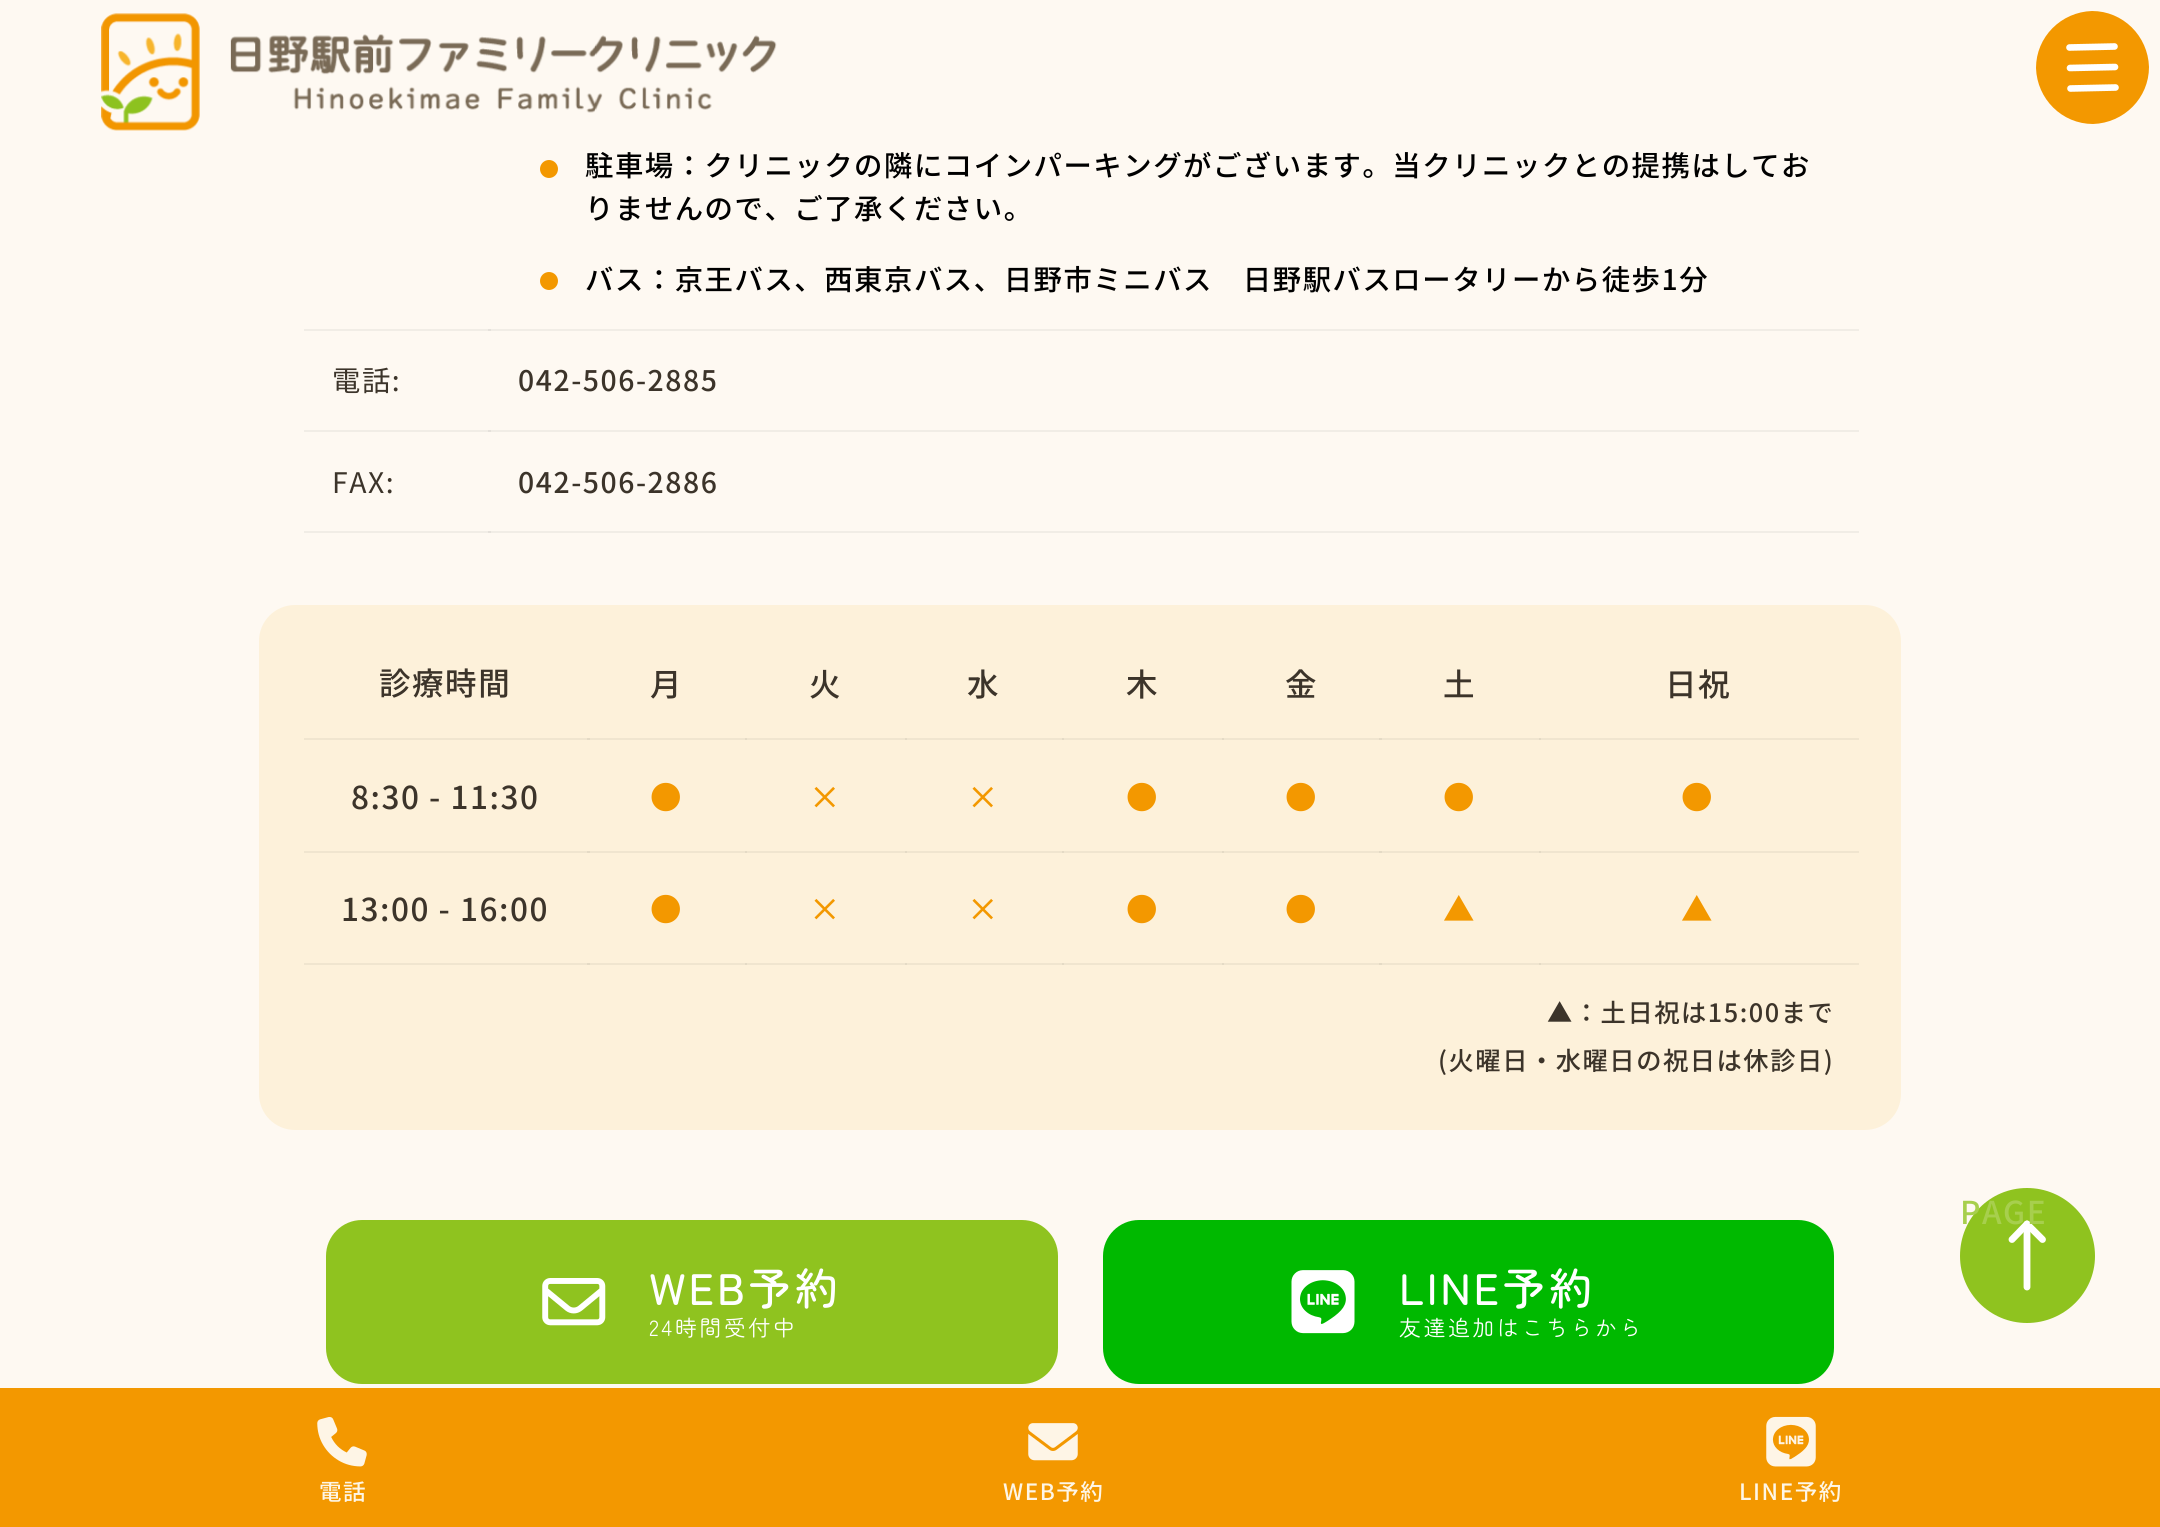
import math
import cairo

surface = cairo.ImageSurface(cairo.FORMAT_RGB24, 2160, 1527)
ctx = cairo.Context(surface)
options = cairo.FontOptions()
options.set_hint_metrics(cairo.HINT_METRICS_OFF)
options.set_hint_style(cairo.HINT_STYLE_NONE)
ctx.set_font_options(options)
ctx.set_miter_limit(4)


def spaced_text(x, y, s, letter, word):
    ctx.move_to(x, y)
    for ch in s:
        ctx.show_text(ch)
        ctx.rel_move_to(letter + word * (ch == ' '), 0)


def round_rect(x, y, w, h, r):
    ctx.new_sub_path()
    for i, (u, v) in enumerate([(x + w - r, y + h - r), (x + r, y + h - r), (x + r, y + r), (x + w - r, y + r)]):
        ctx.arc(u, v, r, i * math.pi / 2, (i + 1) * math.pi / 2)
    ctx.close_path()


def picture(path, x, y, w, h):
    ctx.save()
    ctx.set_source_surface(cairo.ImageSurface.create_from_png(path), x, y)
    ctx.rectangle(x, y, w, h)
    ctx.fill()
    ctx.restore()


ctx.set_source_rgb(0.996, 0.976, 0.949)
ctx.paint()
ctx.set_source_rgb(0.945, 0.929, 0.902)
ctx.rectangle(304, 329, 1555, 2)
ctx.fill()
ctx.rectangle(304, 430, 1555, 2)
ctx.fill()
ctx.rectangle(304, 531, 1555, 2)
ctx.fill()
picture("img1.png", 101, 13, 676, 118)
ctx.set_source_rgb(0.953, 0.596, 0)
ctx.new_path()
ctx.move_to(2092, 11)
ctx.curve_to(2123, 11, 2148, 36, 2149, 67)
ctx.curve_to(2149, 98, 2124, 123, 2093, 124)
ctx.curve_to(2062, 124, 2037, 99, 2036, 68)
ctx.curve_to(2036, 37, 2061, 12, 2092, 11)
ctx.close_path()
ctx.fill()
ctx.new_path()
ctx.move_to(2069.5, 47.5)
ctx.line_to(2114.5, 46.5)
ctx.move_to(2070, 68)
ctx.line_to(2115, 67)
ctx.move_to(2070.5, 88.5)
ctx.line_to(2115.5, 87.5)
ctx.set_source_rgb(1, 1, 1)
ctx.set_line_width(6.6)
ctx.set_line_cap(cairo.LINE_CAP_ROUND)
ctx.set_line_join(cairo.LINE_JOIN_ROUND)
ctx.stroke()
ctx.set_source_rgb(0.898, 0.882, 0.859)
ctx.rectangle(488, 329, 3, 2)
ctx.fill()
ctx.set_source_rgb(0.953, 0.596, 0)
ctx.arc(549, 169, 9, 0, 2 * math.pi)
ctx.fill()
ctx.select_font_face("Noto Sans JP Medium")
ctx.set_font_size(28.35)
ctx.set_source_rgb(0, 0, 0)
spaced_text(585, 176, "駐車場：クリニックの隣にコインパーキングがございます。当クリニックとの提携はしてお", 1.55, 0)
spaced_text(585, 219, "りませんので、ご了承ください。", 1.55, 0)
ctx.set_source_rgb(0.953, 0.596, 0)
ctx.new_path()
ctx.arc(549, 281, 9, 0, 2 * math.pi)
ctx.fill()
ctx.set_source_rgb(0, 0, 0)
spaced_text(585, 290, "バス：京王バス、西東京バス、日野市ミニバス　日野駅バスロータリーから徒歩1分", 1.55, 0)
ctx.select_font_face("Noto Sans JP")
ctx.set_source_rgb(0.235, 0.204, 0.165)
spaced_text(332, 391, "電話:", 1.55, 0)
ctx.set_source_rgb(0.898, 0.882, 0.859)
ctx.rectangle(488, 430, 3, 2)
ctx.fill()
ctx.select_font_face("Noto Sans JP Medium")
ctx.set_source_rgb(0.235, 0.204, 0.165)
spaced_text(518, 391, "042-506-2885", 1.55, 0)
ctx.select_font_face("Noto Sans JP")
spaced_text(332, 493, "FAX:", 1.55, 0)
ctx.set_source_rgb(0.898, 0.882, 0.859)
ctx.rectangle(488, 531, 3, 2)
ctx.fill()
ctx.select_font_face("Noto Sans JP Medium")
ctx.set_source_rgb(0.235, 0.204, 0.165)
spaced_text(518, 493, "042-506-2886", 1.55, 0)
ctx.set_source_rgb(0.992, 0.945, 0.855)
round_rect(259, 605, 1642, 525, 36)
ctx.fill()
ctx.set_source_rgb(0.941, 0.898, 0.812)
ctx.rectangle(304, 738, 1555, 2)
ctx.fill()
ctx.set_source_rgb(0.894, 0.855, 0.773)
ctx.rectangle(587, 738, 3, 2)
ctx.fill()
ctx.rectangle(745, 738, 2, 2)
ctx.fill()
ctx.rectangle(905, 738, 2, 2)
ctx.fill()
ctx.rectangle(1062, 738, 2, 2)
ctx.fill()
ctx.rectangle(1222, 738, 2, 2)
ctx.fill()
ctx.rectangle(1379, 738, 3, 2)
ctx.fill()
ctx.set_source_rgb(0.941, 0.898, 0.812)
ctx.rectangle(304, 851, 1555, 2)
ctx.fill()
ctx.set_source_rgb(0.894, 0.855, 0.773)
ctx.rectangle(587, 851, 3, 2)
ctx.fill()
ctx.rectangle(745, 851, 2, 2)
ctx.fill()
ctx.rectangle(905, 851, 2, 2)
ctx.fill()
ctx.rectangle(1062, 851, 2, 2)
ctx.fill()
ctx.rectangle(1222, 851, 2, 2)
ctx.fill()
ctx.rectangle(1379, 851, 3, 2)
ctx.fill()
ctx.set_source_rgb(0.941, 0.898, 0.812)
ctx.rectangle(304, 963, 1555, 2)
ctx.fill()
ctx.set_source_rgb(0.894, 0.855, 0.773)
ctx.rectangle(587, 963, 3, 2)
ctx.fill()
ctx.rectangle(745, 963, 2, 2)
ctx.fill()
ctx.rectangle(905, 963, 2, 2)
ctx.fill()
ctx.rectangle(1062, 963, 2, 2)
ctx.fill()
ctx.rectangle(1222, 963, 2, 2)
ctx.fill()
ctx.rectangle(1379, 963, 3, 2)
ctx.fill()
ctx.set_font_size(31.5)
ctx.set_source_rgb(0.235, 0.204, 0.165)
spaced_text(379, 695, "診療時間", 1.55, 0)
spaced_text(650, 696, "月", 1.55, 0)
spaced_text(809, 696, "火", 1.55, 0)
spaced_text(967, 696, "水", 1.55, 0)
spaced_text(1126, 696, "木", 1.55, 0)
spaced_text(1285, 696, "金", 1.55, 0)
spaced_text(1443, 696, "土", 1.55, 0)
ctx.set_source_rgb(0.894, 0.855, 0.773)
ctx.rectangle(1539, 738, 2, 2)
ctx.fill()
ctx.set_source_rgb(0.235, 0.204, 0.165)
spaced_text(1665, 696, "日祝", 1.55, 0)
spaced_text(351, 809, "8:30 - 11:30", 1.55, 0)
ctx.set_source_rgb(0.953, 0.596, 0)
spaced_text(650, 809, "●", 1.55, 0)
spaced_text(809, 809, "×", 1.55, 0)
spaced_text(967, 809, "×", 1.55, 0)
spaced_text(1126, 809, "●", 1.55, 0)
spaced_text(1285, 809, "●", 1.55, 0)
spaced_text(1443, 809, "●", 1.55, 0)
ctx.set_source_rgb(0.894, 0.855, 0.773)
ctx.rectangle(1539, 851, 2, 2)
ctx.fill()
ctx.set_source_rgb(0.953, 0.596, 0)
spaced_text(1681, 809, "●", 1.55, 0)
ctx.set_source_rgb(0.235, 0.204, 0.165)
spaced_text(341, 921, "13:00 - 16:00", 1.55, 0)
ctx.set_source_rgb(0.953, 0.596, 0)
spaced_text(650, 921, "●", 1.55, 0)
spaced_text(809, 921, "×", 1.55, 0)
spaced_text(967, 921, "×", 1.55, 0)
spaced_text(1126, 921, "●", 1.55, 0)
spaced_text(1285, 921, "●", 1.55, 0)
spaced_text(1443, 921, "▲", 1.55, 0)
ctx.set_source_rgb(0.894, 0.855, 0.773)
ctx.rectangle(1539, 963, 2, 2)
ctx.fill()
ctx.set_source_rgb(0.953, 0.596, 0)
spaced_text(1681, 921, "▲", 1.55, 0)
ctx.set_font_size(25.25)
ctx.set_source_rgb(0.235, 0.204, 0.165)
spaced_text(1547, 1022, "▲：土日祝は15:00まで", 1.55, 0)
spaced_text(1438, 1070, "(火曜日・水曜日の祝日は休診日)", 1.55, 0)
ctx.set_source_rgb(0.561, 0.765, 0.122)
round_rect(326, 1220, 732, 164, 36)
ctx.fill()
picture("img2.png", 542, 1278, 64, 48)
ctx.select_font_face("Zen Maru Gothic Medium")
ctx.set_font_size(44)
ctx.set_source_rgb(1, 1, 1)
spaced_text(649, 1305, "WEB予約", 2.75, 0)
ctx.select_font_face("Zen Maru Gothic")
ctx.set_font_size(22)
spaced_text(649, 1336, "24時間受付中", 2.5, 0)
ctx.set_source_rgb(0, 0.725, 0)
round_rect(1103, 1220, 731, 164, 36)
ctx.fill()
picture("img3.png", 1291, 1270, 64, 64)
ctx.select_font_face("Zen Maru Gothic Medium")
ctx.set_font_size(44)
ctx.set_source_rgb(1, 1, 1)
spaced_text(1399, 1305, "LINE予約", 2.75, 0)
ctx.select_font_face("Zen Maru Gothic")
ctx.set_font_size(22)
spaced_text(1399, 1336, "友達追加はこちらから", 2.5, 0)
ctx.set_source_rgb(0.561, 0.765, 0.122)
ctx.new_path()
ctx.move_to(2027, 1188)
ctx.curve_to(2064, 1188, 2095, 1218, 2095, 1256)
ctx.curve_to(2095, 1293, 2064, 1323, 2027, 1323)
ctx.curve_to(1990, 1323, 1960, 1293, 1960, 1256)
ctx.curve_to(1960, 1218, 1990, 1188, 2027, 1188)
ctx.close_path()
ctx.fill()
ctx.new_path()
ctx.move_to(2012, 1239.5)
ctx.line_to(2027, 1224)
ctx.line_to(2042.5, 1239.5)
ctx.line_to(2027, 1224)
ctx.set_source_rgb(1, 1, 1)
ctx.set_line_width(6.8)
ctx.stroke()
ctx.new_path()
ctx.move_to(2027, 1224)
ctx.line_to(2027, 1287)
ctx.stroke()
ctx.select_font_face("Noto Sans JP Medium")
ctx.set_font_size(31.5)
ctx.set_source_rgb(0.655, 0.812, 0.302)
spaced_text(1960, 1224, "PAGE", 1.55, 0)
ctx.set_source_rgb(0.953, 0.596, 0)
ctx.rectangle(0, 1388, 2160, 139)
ctx.fill()
picture("img4.png", 317, 1417, 50, 50)
ctx.set_font_size(22.5)
ctx.set_source_rgb(0.996, 0.961, 0.902)
spaced_text(319, 1500, "電話", 1.55, 0)
picture("img5.png", 1028, 1423, 50, 38)
spaced_text(1003, 1500, "WEB予約", 1.55, 0)
picture("img6.png", 1766, 1416, 50, 51)
spaced_text(1739, 1500, "LINE予約", 1.55, 0)
surface.write_to_png("page.png")
